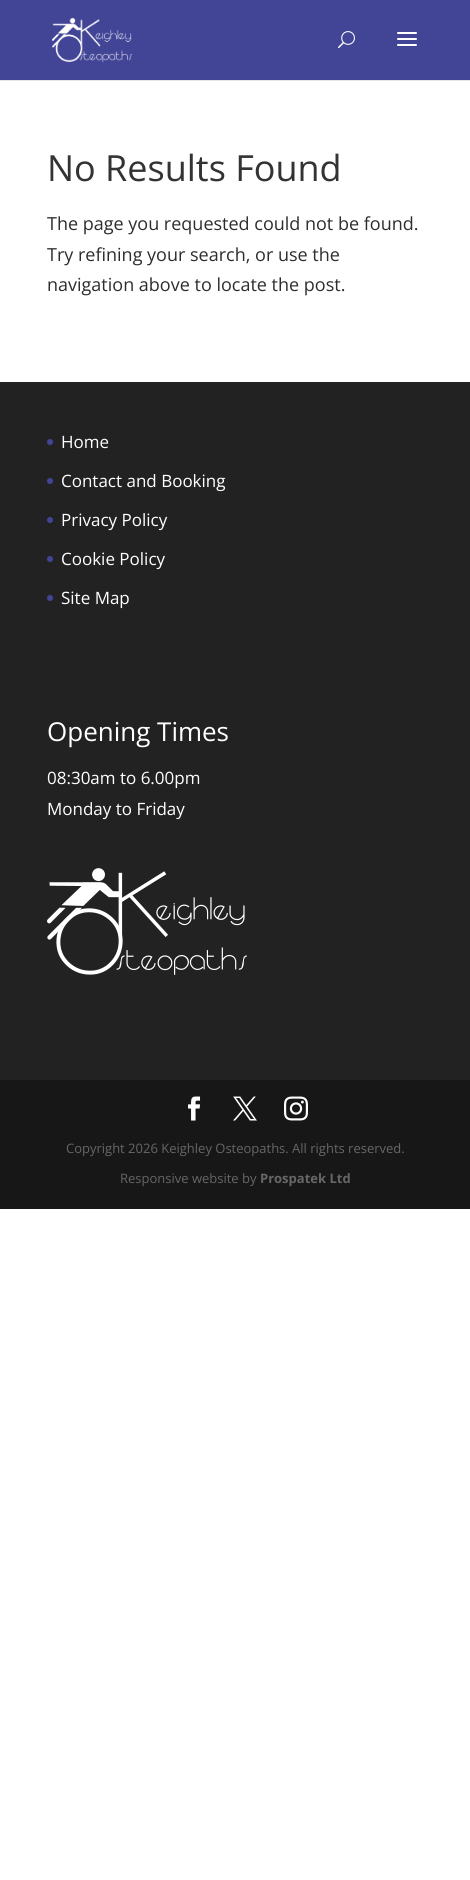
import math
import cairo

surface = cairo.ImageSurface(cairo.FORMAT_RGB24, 470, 1880)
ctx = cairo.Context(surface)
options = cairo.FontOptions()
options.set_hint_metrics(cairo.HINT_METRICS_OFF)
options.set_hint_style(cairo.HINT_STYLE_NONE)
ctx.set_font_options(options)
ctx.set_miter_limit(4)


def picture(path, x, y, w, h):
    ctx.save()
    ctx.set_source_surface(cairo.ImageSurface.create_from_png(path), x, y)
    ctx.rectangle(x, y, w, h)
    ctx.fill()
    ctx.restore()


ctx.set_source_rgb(1, 1, 1)
ctx.paint()
ctx.set_source_rgb(0.902, 0.902, 0.902)
ctx.rectangle(0, 80, 470, 1)
ctx.fill()
ctx.set_source_rgb(0.259, 0.271, 0.588)
ctx.rectangle(0, 0, 470, 80)
ctx.fill()
picture("img1.png", 52, 18, 80, 44)
picture("img2.png", 338, 31, 17, 18)
picture("img3.png", 397, 32, 20, 14)
ctx.select_font_face("Open Sans")
ctx.set_font_size(36)
ctx.set_source_rgb(0.2, 0.2, 0.2)
ctx.move_to(47, 181)
ctx.show_text("No Results Found")
ctx.set_font_size(18)
ctx.set_source_rgb(0.176, 0.176, 0.176)
ctx.move_to(47, 230)
ctx.show_text("The page you requested could not be found.")
ctx.move_to(47, 261)
ctx.show_text("Try refining your search, or use the")
ctx.move_to(47, 291)
ctx.show_text("navigation above to locate the post.")
ctx.set_source_rgb(0.133, 0.133, 0.133)
ctx.rectangle(0, 382, 470, 698)
ctx.fill()
ctx.set_source_rgb(0.259, 0.271, 0.588)
ctx.arc(50, 442, 3, 0, 2 * math.pi)
ctx.fill()
ctx.set_font_size(17)
ctx.set_source_rgb(1, 1, 1)
ctx.move_to(61, 448)
ctx.show_text("Home")
ctx.set_source_rgb(0.259, 0.271, 0.588)
ctx.new_path()
ctx.arc(50, 481, 3, 0, 2 * math.pi)
ctx.fill()
ctx.set_source_rgb(1, 1, 1)
ctx.move_to(61, 487)
ctx.show_text("Contact and Booking")
ctx.set_source_rgb(0.259, 0.271, 0.588)
ctx.new_path()
ctx.arc(50, 520, 3, 0, 2 * math.pi)
ctx.fill()
ctx.set_source_rgb(1, 1, 1)
ctx.move_to(61, 526)
ctx.show_text("Privacy Policy")
ctx.set_source_rgb(0.259, 0.271, 0.588)
ctx.new_path()
ctx.arc(50, 559, 3, 0, 2 * math.pi)
ctx.fill()
ctx.set_source_rgb(1, 1, 1)
ctx.move_to(61, 565)
ctx.show_text("Cookie Policy")
ctx.set_source_rgb(0.259, 0.271, 0.588)
ctx.new_path()
ctx.arc(50, 598, 3, 0, 2 * math.pi)
ctx.fill()
ctx.set_source_rgb(1, 1, 1)
ctx.move_to(61, 604)
ctx.show_text("Site Map")
ctx.set_font_size(26)
ctx.move_to(47, 741)
ctx.show_text("Opening Times")
ctx.set_font_size(17)
ctx.move_to(47, 784)
ctx.show_text("08:30am to 6.00pm")
ctx.move_to(47, 815)
ctx.show_text("Monday to Friday")
picture("img4.png", 47, 868, 200, 107)
ctx.set_source_rgb(0.09, 0.09, 0.09)
ctx.rectangle(0, 1080, 470, 129)
ctx.fill()
picture("img5.png", 188, 1096, 13, 25)
picture("img6.png", 233, 1096, 24, 25)
picture("img7.png", 284, 1096, 24, 25)
ctx.set_font_size(13)
ctx.set_source_rgb(0.4, 0.4, 0.4)
ctx.move_to(66, 1153)
ctx.show_text("Copyright 2026 Keighley Osteopaths. All rights reserved.")
ctx.move_to(120, 1183)
ctx.show_text("Responsive website by")
ctx.select_font_face("Open Sans", cairo.FONT_SLANT_NORMAL, cairo.FONT_WEIGHT_BOLD)
ctx.move_to(260, 1183)
ctx.show_text("Prospatek Ltd")
surface.write_to_png("page.png")
